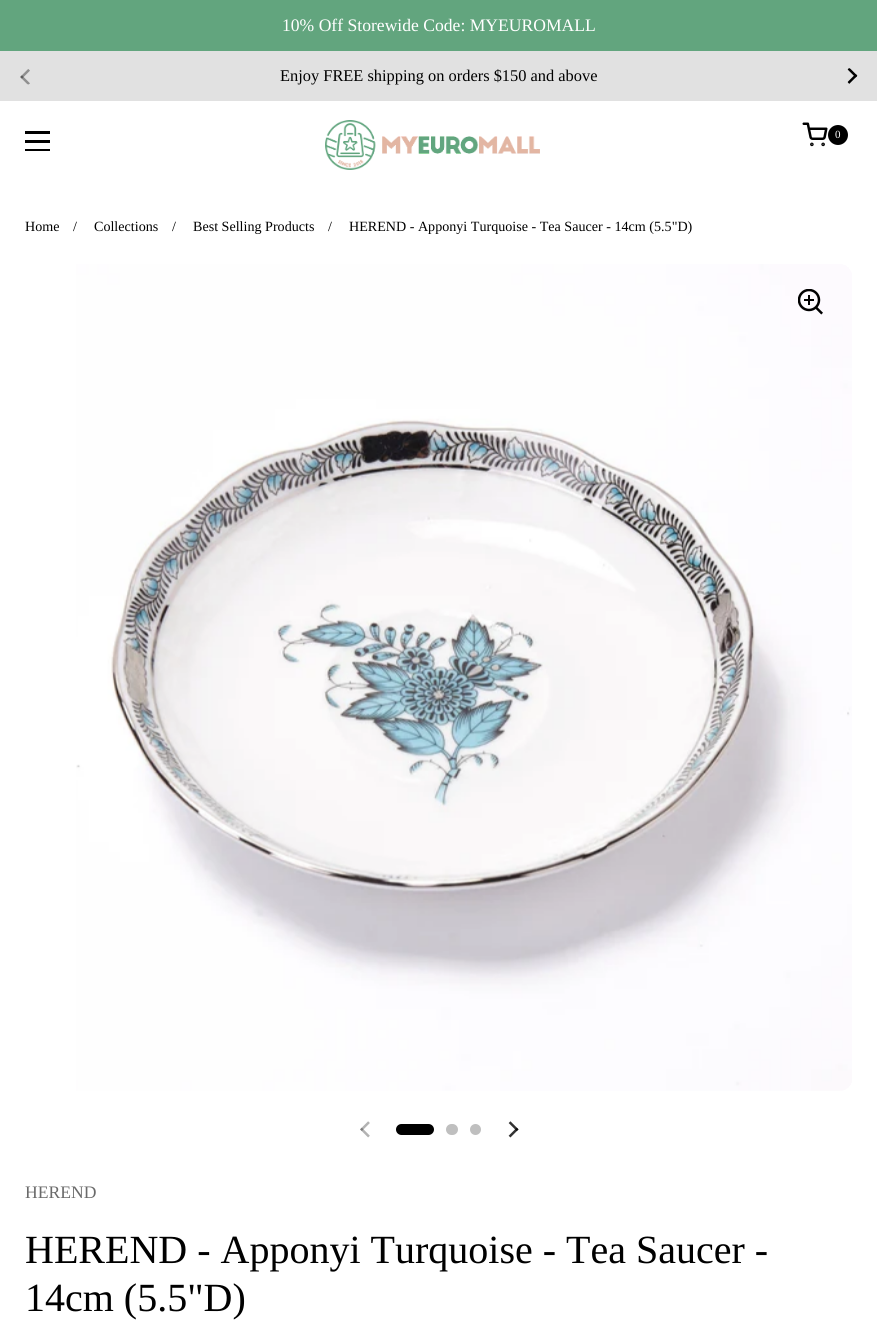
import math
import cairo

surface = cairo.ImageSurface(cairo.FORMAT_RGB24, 877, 1326)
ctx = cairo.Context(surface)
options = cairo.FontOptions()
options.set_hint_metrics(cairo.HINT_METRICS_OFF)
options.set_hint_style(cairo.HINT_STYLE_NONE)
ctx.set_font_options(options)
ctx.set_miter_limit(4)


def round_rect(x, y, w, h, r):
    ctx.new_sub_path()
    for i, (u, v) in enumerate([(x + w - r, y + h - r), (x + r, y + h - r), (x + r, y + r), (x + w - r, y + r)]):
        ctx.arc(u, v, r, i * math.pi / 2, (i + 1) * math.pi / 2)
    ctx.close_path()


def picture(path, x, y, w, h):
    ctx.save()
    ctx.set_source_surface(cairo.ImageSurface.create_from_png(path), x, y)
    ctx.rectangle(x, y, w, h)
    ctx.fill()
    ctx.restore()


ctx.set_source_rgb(1, 1, 1)
ctx.paint()
ctx.set_source_rgb(0.384, 0.647, 0.494)
ctx.rectangle(0, 0, 877, 51)
ctx.fill()
ctx.select_font_face("Liberation Serif")
ctx.set_font_size(17.6)
ctx.set_source_rgb(1, 1, 1)
ctx.move_to(282, 31)
ctx.show_text("10% Off Storewide Code: MYEUROMALL")
ctx.set_source_rgb(0.882, 0.882, 0.882)
ctx.rectangle(0, 51, 877, 50)
ctx.fill()
picture("img1.png", 20, 69, 10, 16)
ctx.set_font_size(16.4)
ctx.set_source_rgb(0, 0, 0)
ctx.move_to(280, 81)
ctx.show_text("Enjoy FREE shipping on orders $150 and above")
picture("img2.png", 847, 68, 11, 16)
ctx.rectangle(25, 131, 25, 3)
ctx.fill()
ctx.rectangle(25, 140, 25, 3)
ctx.fill()
ctx.rectangle(25, 149, 25, 2)
ctx.fill()
picture("img3.png", 325, 120, 215, 50)
picture("img4.png", 802, 122, 26, 25)
ctx.arc(838, 135, 10, 0, 2 * math.pi)
ctx.fill()
ctx.set_font_size(11)
ctx.set_source_rgb(1, 1, 1)
ctx.move_to(835, 138)
ctx.show_text("0")
ctx.set_font_size(14.1)
ctx.set_source_rgb(0, 0, 0)
ctx.move_to(25, 231)
ctx.show_text("Home")
ctx.move_to(73, 231)
ctx.show_text("/")
ctx.move_to(94, 231)
ctx.show_text("Collections")
ctx.move_to(172, 231)
ctx.show_text("/")
ctx.move_to(193, 231)
ctx.show_text("Best Selling Products")
ctx.move_to(328, 231)
ctx.show_text("/")
ctx.move_to(349, 231)
ctx.show_text("HEREND - Apponyi Turquoise - Tea Saucer - 14cm (5.5\"D)")
picture("img5.png", 76, 264, 776, 827)
picture("img6.png", 798, 289, 25, 26)
picture("img7.png", 360, 1121, 10, 17)
round_rect(396, 1124, 38, 11, 5.5)
ctx.fill()
ctx.set_source_rgb(0.749, 0.749, 0.749)
round_rect(446, 1124, 12, 11, 5.5)
ctx.fill()
ctx.arc(475.5, 1129.5, 5.5, 0, 2 * math.pi)
ctx.fill()
picture("img8.png", 508, 1121, 11, 17)
ctx.set_font_size(17.6)
ctx.set_source_rgb(0.416, 0.416, 0.416)
ctx.move_to(25, 1198)
ctx.show_text("HEREND")
ctx.set_font_size(40)
ctx.set_source_rgb(0, 0, 0)
ctx.move_to(25, 1263)
ctx.show_text("HEREND - Apponyi Turquoise - Tea Saucer -")
ctx.move_to(25, 1311)
ctx.show_text("14cm (5.5\"D)")
surface.write_to_png("page.png")
